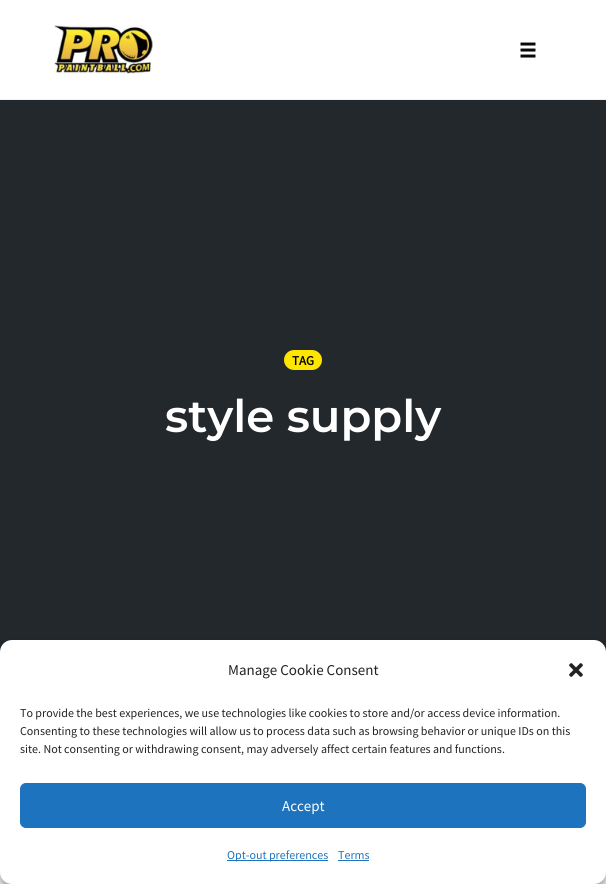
import math
import cairo

surface = cairo.ImageSurface(cairo.FORMAT_RGB24, 606, 884)
ctx = cairo.Context(surface)
options = cairo.FontOptions()
options.set_hint_metrics(cairo.HINT_METRICS_OFF)
options.set_hint_style(cairo.HINT_STYLE_NONE)
ctx.set_font_options(options)
ctx.set_miter_limit(4)


def round_rect(x, y, w, h, r):
    ctx.new_sub_path()
    for i, (u, v) in enumerate([(x + w - r, y + h - r), (x + r, y + h - r), (x + r, y + r), (x + w - r, y + r)]):
        ctx.arc(u, v, r, i * math.pi / 2, (i + 1) * math.pi / 2)
    ctx.close_path()


def shadow(x, y, w, h, r, blur, alpha):
    ctx.push_group_with_content(cairo.CONTENT_ALPHA)
    ctx.set_operator(cairo.OPERATOR_SOURCE)
    for i in range(15, -16, -2):
        e = blur * i / 6
        if min(w, h) + 2 * e > 0:
            ctx.set_source_rgba(0, 0, 0, alpha * math.erfc((i - 1) / 8.5) / 2)
            round_rect(x - e, y - e, w + 2 * e, h + 2 * e, max(0, min(r + e + blur * .6, min(w, h) / 2 + e)))
            ctx.fill()
    ctx.mask(ctx.pop_group())


def picture(path, x, y, w, h):
    ctx.save()
    ctx.set_source_surface(cairo.ImageSurface.create_from_png(path), x, y)
    ctx.rectangle(x, y, w, h)
    ctx.fill()
    ctx.restore()


ctx.set_source_rgb(1, 1, 1)
ctx.paint()
ctx.set_source_rgb(0.941, 0.941, 0.941)
ctx.rectangle(0, 99, 606, 1)
ctx.fill()
picture("img1.png", 54, 25, 99, 49)
picture("img2.png", 520, 42, 16, 16)
ctx.set_source_rgb(0.137, 0.157, 0.176)
ctx.rectangle(0, 100, 606, 552)
ctx.fill()
ctx.set_source_rgb(1, 0.902, 0)
round_rect(284, 350, 38, 20, 10)
ctx.fill()
ctx.select_font_face("Source Sans Pro", cairo.FONT_SLANT_NORMAL, cairo.FONT_WEIGHT_BOLD)
ctx.set_font_size(13)
ctx.set_source_rgb(0, 0, 0)
ctx.move_to(292, 365)
ctx.show_text("TAG")
ctx.select_font_face("Montserrat SemiBold")
ctx.set_font_size(45)
ctx.set_source_rgb(1, 1, 1)
ctx.move_to(165, 432)
ctx.show_text("style supply")
ctx.set_source_rgb(0.988, 0.988, 0.988)
ctx.rectangle(0, 872, 606, 12)
ctx.fill()
ctx.set_source_rgb(0, 0, 0)
shadow(0, 646, 606, 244, 12, 3, 0.23)
shadow(0, 650, 606, 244, 12, 10, 0.19)
ctx.set_source_rgb(1, 1, 1)
round_rect(0, 640, 606, 244, 12)
ctx.fill()
ctx.select_font_face("Source Sans Pro")
ctx.set_font_size(15)
ctx.set_source_rgb(0.133, 0.133, 0.133)
ctx.move_to(228, 675)
ctx.show_text("Manage Cookie Consent")
picture("img3.png", 569, 663, 14, 14)
ctx.set_font_size(12)
ctx.move_to(20, 717)
ctx.show_text("To provide the best experiences, we use technologies like cookies to store and/or access device information.")
ctx.move_to(20, 735)
ctx.show_text("Consenting to these technologies will allow us to process data such as browsing behavior or unique IDs on this")
ctx.move_to(20, 753)
ctx.show_text("site. Not consenting or withdrawing consent, may adversely affect certain features and functions.")
ctx.set_source_rgb(0.118, 0.451, 0.745)
round_rect(20.5, 783.5, 565, 44, 5.5)
ctx.fill_preserve()
ctx.set_line_width(1)
ctx.stroke()
ctx.set_font_size(15)
ctx.set_source_rgb(1, 1, 1)
ctx.move_to(282, 811)
ctx.show_text("Accept")
ctx.set_source_rgb(0.118, 0.451, 0.745)
ctx.rectangle(227, 860, 101, 1)
ctx.fill()
ctx.set_font_size(12)
ctx.move_to(227, 859)
ctx.show_text("Opt-out preferences")
ctx.move_to(338, 859)
ctx.show_text("Terms")
ctx.rectangle(338, 860, 31, 1)
ctx.fill()
surface.write_to_png("page.png")
